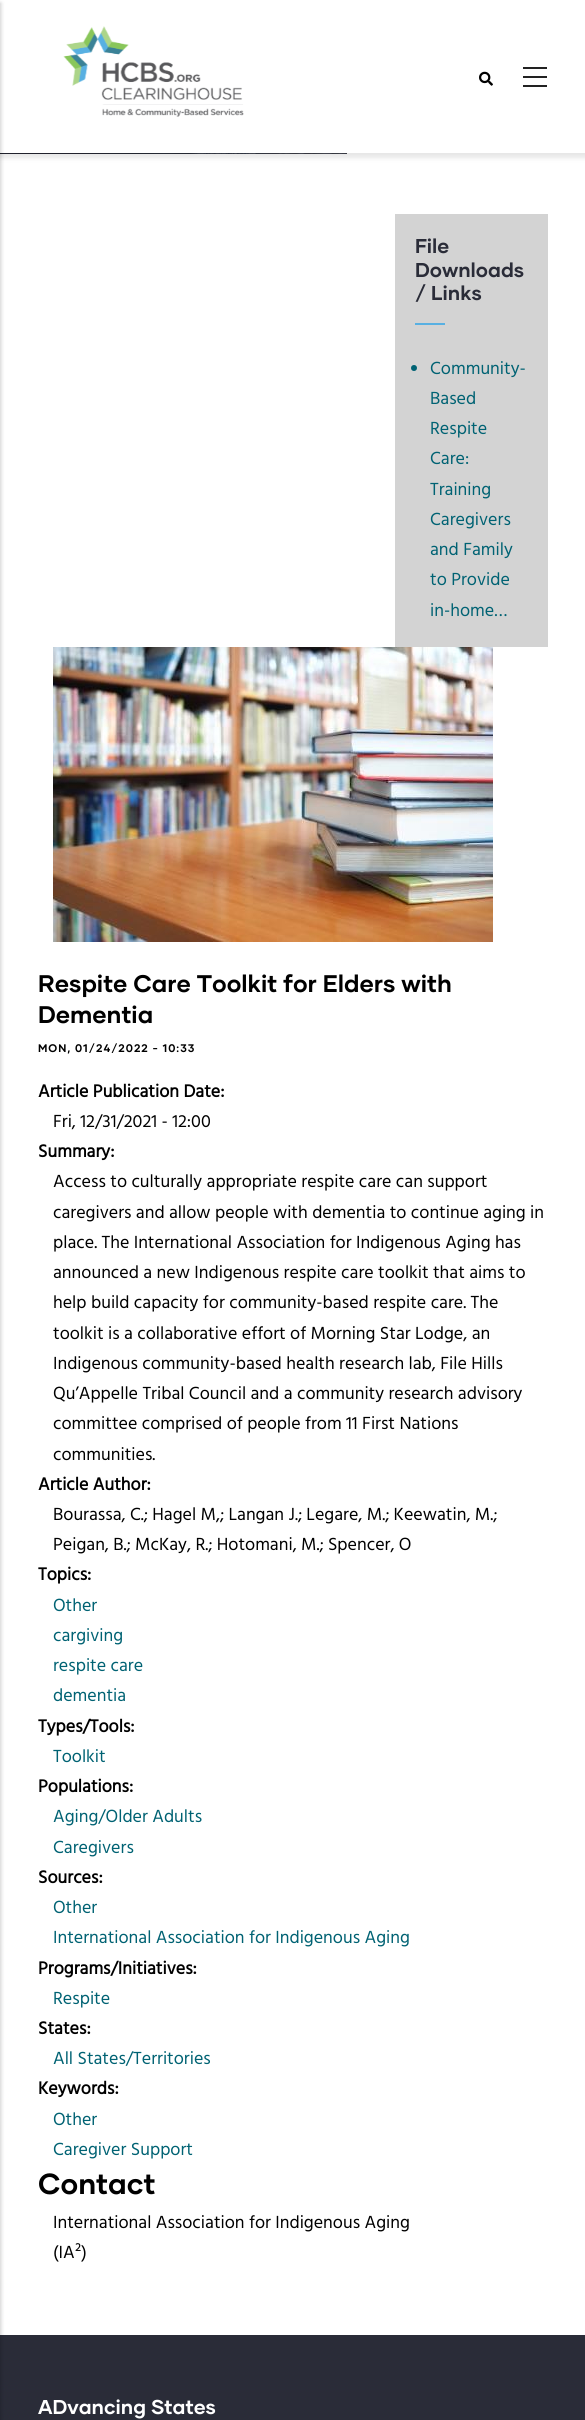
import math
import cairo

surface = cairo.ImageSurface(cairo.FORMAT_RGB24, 585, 2420)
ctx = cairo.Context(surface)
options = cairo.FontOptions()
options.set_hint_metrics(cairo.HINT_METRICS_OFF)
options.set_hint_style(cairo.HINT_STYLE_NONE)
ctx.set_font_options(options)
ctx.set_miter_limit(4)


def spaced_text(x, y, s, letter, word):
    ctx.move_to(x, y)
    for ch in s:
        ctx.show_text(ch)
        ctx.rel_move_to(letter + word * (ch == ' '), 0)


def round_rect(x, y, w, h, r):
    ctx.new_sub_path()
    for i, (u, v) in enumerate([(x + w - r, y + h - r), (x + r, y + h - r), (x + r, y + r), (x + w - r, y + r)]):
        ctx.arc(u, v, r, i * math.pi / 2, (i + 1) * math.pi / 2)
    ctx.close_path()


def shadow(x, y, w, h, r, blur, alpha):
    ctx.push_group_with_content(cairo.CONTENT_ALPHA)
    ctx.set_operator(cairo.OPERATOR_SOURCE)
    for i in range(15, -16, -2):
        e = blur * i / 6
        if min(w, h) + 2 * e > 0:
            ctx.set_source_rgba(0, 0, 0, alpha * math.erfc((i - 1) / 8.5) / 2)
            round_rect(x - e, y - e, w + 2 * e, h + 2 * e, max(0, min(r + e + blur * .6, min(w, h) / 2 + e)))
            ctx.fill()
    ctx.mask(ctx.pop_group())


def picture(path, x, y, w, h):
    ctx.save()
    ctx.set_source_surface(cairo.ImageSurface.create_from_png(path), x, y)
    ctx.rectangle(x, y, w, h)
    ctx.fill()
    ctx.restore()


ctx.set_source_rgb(1, 1, 1)
ctx.paint()
picture("img3.png", 0, 153, 347, 1)
ctx.set_source_rgb(0, 0, 0)
shadow(-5, -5, 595, 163, 0, 2.5, 0.1)
ctx.set_source_rgb(1, 1, 1)
ctx.rectangle(0, 0, 585, 153)
ctx.fill()
ctx.set_source_rgb(0.165, 0.173, 0.22)
ctx.rectangle(0, 2335, 585, 85)
ctx.fill()
ctx.set_source_rgb(0, 0, 0)
shadow(-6, 3, 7, 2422, 0, 2, 0.2)
picture("img1.png", 479, 71, 14, 15)
ctx.set_source_rgb(0.133, 0.133, 0.133)
ctx.rectangle(523, 67, 24, 2)
ctx.fill()
ctx.rectangle(523, 76, 24, 2)
ctx.fill()
ctx.rectangle(523, 85, 24, 2)
ctx.fill()
picture("img2.png", 63, 26, 181, 91)
ctx.set_source_rgb(0.827, 0.827, 0.827)
ctx.rectangle(395, 214, 153, 433)
ctx.fill()
ctx.select_font_face("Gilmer", cairo.FONT_SLANT_NORMAL, cairo.FONT_WEIGHT_BOLD)
ctx.set_font_size(20)
ctx.set_source_rgb(0.165, 0.173, 0.22)
ctx.move_to(415, 253)
ctx.show_text("File")
ctx.move_to(415, 277)
ctx.show_text("Downloads")
ctx.move_to(415, 300)
ctx.show_text("/ Links")
ctx.set_source_rgb(0.345, 0.69, 0.886)
ctx.rectangle(415, 323, 30, 2)
ctx.fill()
ctx.set_source_rgb(0, 0.384, 0.451)
ctx.arc(414, 368, 3, 0, 2 * math.pi)
ctx.fill()
ctx.select_font_face("Hind")
ctx.set_font_size(18)
ctx.move_to(430, 374)
ctx.show_text("Community-")
ctx.move_to(430, 404)
ctx.show_text("Based")
ctx.move_to(430, 434)
ctx.show_text("Respite")
ctx.move_to(430, 464)
ctx.show_text("Care:")
ctx.move_to(430, 495)
ctx.show_text("Training")
ctx.move_to(430, 525)
ctx.show_text("Caregivers")
ctx.move_to(430, 555)
ctx.show_text("and Family")
ctx.move_to(430, 585)
ctx.show_text("to Provide")
ctx.move_to(430, 616)
ctx.show_text("in-home…")
picture("img4.png", 53, 647, 440, 295)
ctx.select_font_face("Gilmer", cairo.FONT_SLANT_NORMAL, cairo.FONT_WEIGHT_BOLD)
ctx.set_font_size(24)
ctx.set_source_rgb(0, 0, 0)
ctx.move_to(38, 992)
ctx.show_text("Respite Care Toolkit for Elders with")
ctx.move_to(38, 1023)
ctx.show_text("Dementia")
ctx.set_font_size(11)
spaced_text(38, 1052, "MON, 01/24/2022 - 10:33", 1, 0)
ctx.select_font_face("Hind", cairo.FONT_SLANT_NORMAL, cairo.FONT_WEIGHT_BOLD)
ctx.set_font_size(18)
ctx.move_to(38, 1097)
ctx.show_text("Article Publication Date:")
ctx.select_font_face("Hind")
ctx.move_to(53, 1127)
ctx.show_text("Fri, 12/31/2021 - 12:00")
ctx.select_font_face("Hind", cairo.FONT_SLANT_NORMAL, cairo.FONT_WEIGHT_BOLD)
ctx.move_to(38, 1157)
ctx.show_text("Summary:")
ctx.select_font_face("Hind")
ctx.move_to(53, 1187)
ctx.show_text("Access to culturally appropriate respite care can support")
ctx.move_to(53, 1218)
ctx.show_text("caregivers and allow people with dementia to continue aging in")
ctx.move_to(53, 1248)
ctx.show_text("place. The International Association for Indigenous Aging has")
ctx.move_to(53, 1278)
ctx.show_text("announced a new Indigenous respite care toolkit that aims to")
ctx.move_to(53, 1308)
ctx.show_text("help build capacity for community-based respite care. The")
ctx.move_to(53, 1339)
ctx.show_text("toolkit is a collaborative effort of Morning Star Lodge, an")
ctx.move_to(53, 1369)
ctx.show_text("Indigenous community-based health research lab, File Hills")
ctx.move_to(53, 1399)
ctx.show_text("Qu’Appelle Tribal Council and a community research advisory")
ctx.move_to(53, 1429)
ctx.show_text("committee comprised of people from 11 First Nations")
ctx.move_to(53, 1460)
ctx.show_text("communities.")
ctx.select_font_face("Hind", cairo.FONT_SLANT_NORMAL, cairo.FONT_WEIGHT_BOLD)
ctx.move_to(38, 1490)
ctx.show_text("Article Author:")
ctx.select_font_face("Hind")
ctx.move_to(53, 1520)
ctx.show_text("Bourassa, C.; Hagel M,; Langan J.; Legare, M.; Keewatin, M.;")
ctx.move_to(53, 1550)
ctx.show_text("Peigan, B.; McKay, R.; Hotomani, M.; Spencer, O")
ctx.select_font_face("Hind", cairo.FONT_SLANT_NORMAL, cairo.FONT_WEIGHT_BOLD)
ctx.move_to(38, 1580)
ctx.show_text("Topics:")
ctx.select_font_face("Hind")
ctx.set_source_rgb(0, 0.384, 0.451)
ctx.move_to(53, 1611)
ctx.show_text("Other")
ctx.move_to(53, 1641)
ctx.show_text("cargiving")
ctx.move_to(53, 1671)
ctx.show_text("respite care")
ctx.move_to(53, 1701)
ctx.show_text("dementia")
ctx.select_font_face("Hind", cairo.FONT_SLANT_NORMAL, cairo.FONT_WEIGHT_BOLD)
ctx.set_source_rgb(0, 0, 0)
ctx.move_to(38, 1732)
ctx.show_text("Types/Tools:")
ctx.select_font_face("Hind")
ctx.set_source_rgb(0, 0.384, 0.451)
ctx.move_to(53, 1762)
ctx.show_text("Toolkit")
ctx.select_font_face("Hind", cairo.FONT_SLANT_NORMAL, cairo.FONT_WEIGHT_BOLD)
ctx.set_source_rgb(0, 0, 0)
ctx.move_to(38, 1792)
ctx.show_text("Populations:")
ctx.select_font_face("Hind")
ctx.set_source_rgb(0, 0.384, 0.451)
ctx.move_to(53, 1822)
ctx.show_text("Aging/Older Adults")
ctx.move_to(53, 1853)
ctx.show_text("Caregivers")
ctx.select_font_face("Hind", cairo.FONT_SLANT_NORMAL, cairo.FONT_WEIGHT_BOLD)
ctx.set_source_rgb(0, 0, 0)
ctx.move_to(38, 1883)
ctx.show_text("Sources:")
ctx.select_font_face("Hind")
ctx.set_source_rgb(0, 0.384, 0.451)
ctx.move_to(53, 1913)
ctx.show_text("Other")
ctx.move_to(53, 1943)
ctx.show_text("International Association for Indigenous Aging")
ctx.select_font_face("Hind", cairo.FONT_SLANT_NORMAL, cairo.FONT_WEIGHT_BOLD)
ctx.set_source_rgb(0, 0, 0)
ctx.move_to(38, 1974)
ctx.show_text("Programs/Initiatives:")
ctx.select_font_face("Hind")
ctx.set_source_rgb(0, 0.384, 0.451)
ctx.move_to(53, 2004)
ctx.show_text("Respite")
ctx.select_font_face("Hind", cairo.FONT_SLANT_NORMAL, cairo.FONT_WEIGHT_BOLD)
ctx.set_source_rgb(0, 0, 0)
ctx.move_to(38, 2034)
ctx.show_text("States:")
ctx.select_font_face("Hind")
ctx.set_source_rgb(0, 0.384, 0.451)
ctx.move_to(53, 2064)
ctx.show_text("All States/Territories")
ctx.select_font_face("Hind", cairo.FONT_SLANT_NORMAL, cairo.FONT_WEIGHT_BOLD)
ctx.set_source_rgb(0, 0, 0)
ctx.move_to(38, 2094)
ctx.show_text("Keywords:")
ctx.select_font_face("Hind")
ctx.set_source_rgb(0, 0.384, 0.451)
ctx.move_to(53, 2125)
ctx.show_text("Other")
ctx.move_to(53, 2155)
ctx.show_text("Caregiver Support")
ctx.select_font_face("Gilmer", cairo.FONT_SLANT_NORMAL, cairo.FONT_WEIGHT_BOLD)
ctx.set_font_size(29)
ctx.set_source_rgb(0, 0, 0)
ctx.move_to(38, 2194)
ctx.show_text("Contact")
ctx.select_font_face("Hind")
ctx.set_font_size(18)
ctx.move_to(53, 2228)
ctx.show_text("International Association for Indigenous Aging")
ctx.move_to(53, 2258)
ctx.show_text("(IA²)")
ctx.select_font_face("Gilmer", cairo.FONT_SLANT_NORMAL, cairo.FONT_WEIGHT_BOLD)
ctx.set_font_size(20)
ctx.set_source_rgb(1, 1, 1)
ctx.move_to(38, 2414)
ctx.show_text("ADvancing States")
surface.write_to_png("page.png")
